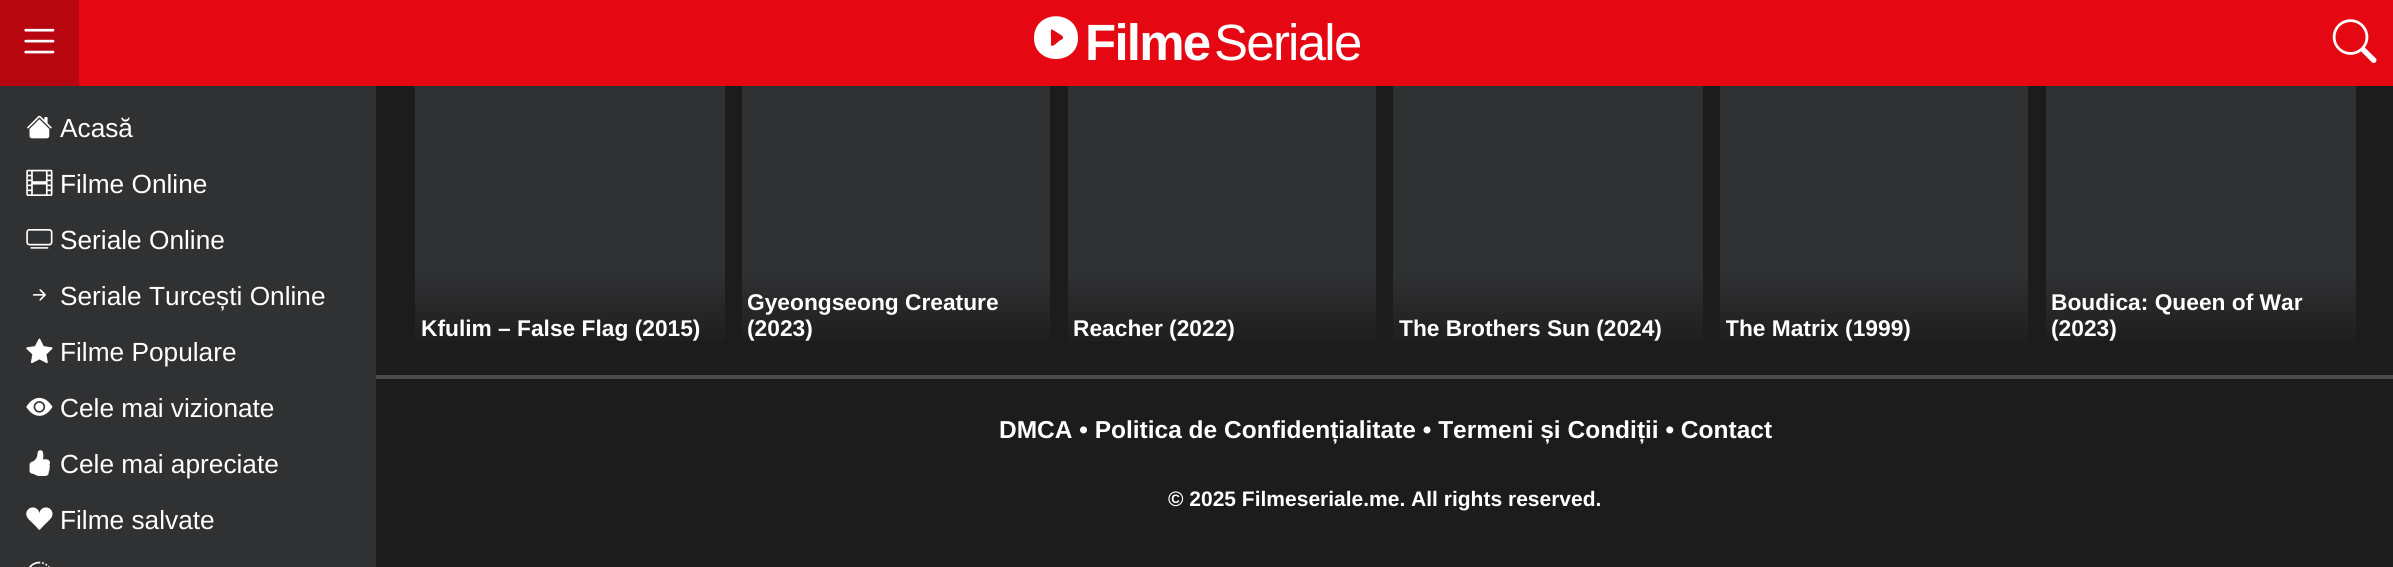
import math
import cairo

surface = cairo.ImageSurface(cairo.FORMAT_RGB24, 2393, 567)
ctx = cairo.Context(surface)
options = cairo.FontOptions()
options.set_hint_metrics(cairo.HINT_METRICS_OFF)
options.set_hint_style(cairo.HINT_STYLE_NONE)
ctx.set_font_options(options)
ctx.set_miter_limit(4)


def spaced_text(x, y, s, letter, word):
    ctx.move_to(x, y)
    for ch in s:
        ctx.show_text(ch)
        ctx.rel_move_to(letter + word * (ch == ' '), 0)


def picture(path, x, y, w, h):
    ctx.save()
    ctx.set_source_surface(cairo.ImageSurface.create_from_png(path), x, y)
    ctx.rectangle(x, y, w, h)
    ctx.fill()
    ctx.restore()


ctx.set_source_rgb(0.11, 0.11, 0.11)
ctx.paint()
ctx.set_source_rgb(0.898, 0.035, 0.078)
ctx.rectangle(79, 0, 2314, 86)
ctx.fill()
ctx.set_source_rgb(0.718, 0.027, 0.063)
ctx.rectangle(0, 0, 79, 86)
ctx.fill()
picture("img1.png", 24, 28, 31, 26)
ctx.set_source_rgb(1, 1, 1)
ctx.new_path()
ctx.move_to(1078, 38)
ctx.curve_to(1078, 66, 1034, 66, 1034, 38)
ctx.curve_to(1034, 9, 1078, 9, 1078, 38)
ctx.close_path()
ctx.move_to(1053, 30)
ctx.curve_to(1050, 28, 1051, 31, 1051, 38)
ctx.line_to(1051, 45)
ctx.curve_to(1052, 48, 1058, 42, 1059, 41)
ctx.curve_to(1063, 39, 1065, 38, 1061, 35)
ctx.close_path()
ctx.fill()
ctx.select_font_face("Liberation Sans", cairo.FONT_SLANT_NORMAL, cairo.FONT_WEIGHT_BOLD)
ctx.set_font_size(51)
spaced_text(1085, 60, "Filme", -1.75, 0)
ctx.select_font_face("Liberation Sans")
spaced_text(1214, 60, "Seriale", -1.75, 0)
picture("img2.png", 2332, 19, 45, 44)
ctx.set_source_rgb(0.188, 0.192, 0.2)
ctx.rectangle(0, 86, 376, 481)
ctx.fill()
picture("img3.png", 27, 115, 25, 24)
ctx.set_font_size(26.25)
ctx.set_source_rgb(1, 1, 1)
ctx.move_to(60, 137)
ctx.show_text("Acasă")
picture("img4.png", 26, 169, 27, 27)
ctx.move_to(60, 193)
ctx.show_text("Filme Online")
picture("img5.png", 26, 229, 27, 20)
ctx.move_to(60, 249)
ctx.show_text("Seriale Online")
picture("img6.png", 32, 289, 14, 12)
ctx.move_to(60, 305)
ctx.show_text("Seriale Turcești Online")
picture("img7.png", 26, 338, 27, 26)
ctx.move_to(60, 361)
ctx.show_text("Filme Populare")
picture("img8.png", 26, 397, 27, 19)
ctx.move_to(60, 417)
ctx.show_text("Cele mai vizionate")
picture("img9.png", 29, 450, 21, 26)
ctx.move_to(60, 473)
ctx.show_text("Cele mai apreciate")
picture("img10.png", 26, 507, 27, 23)
ctx.move_to(60, 529)
ctx.show_text("Filme salvate")
picture("img11.png", 29, 561, 21, 6)
ctx.set_source_rgb(0.188, 0.192, 0.2)
ctx.rectangle(415, 86, 310, 185)
ctx.fill()
gradient = cairo.LinearGradient(570, 271, 570, 350)
gradient.add_color_stop_rgba(0, 0.188, 0.192, 0.2, 1)
gradient.add_color_stop_rgba(1, 0.11, 0.11, 0.11, 1)
ctx.set_source(gradient)
ctx.rectangle(415, 271, 310, 70)
ctx.fill()
ctx.select_font_face("Liberation Sans", cairo.FONT_SLANT_NORMAL, cairo.FONT_WEIGHT_BOLD)
ctx.set_font_size(22.75)
ctx.set_source_rgb(1, 1, 1)
ctx.move_to(421, 336)
ctx.show_text("Kfulim – False Flag (2015)")
ctx.set_source_rgb(0.188, 0.192, 0.2)
ctx.rectangle(742, 86, 308, 185)
ctx.fill()
gradient = cairo.LinearGradient(896, 271, 896, 350)
gradient.add_color_stop_rgba(0, 0.188, 0.192, 0.2, 1)
gradient.add_color_stop_rgba(1, 0.11, 0.11, 0.11, 1)
ctx.set_source(gradient)
ctx.rectangle(742, 271, 308, 70)
ctx.fill()
ctx.set_source_rgb(1, 1, 1)
ctx.move_to(747, 310)
ctx.show_text("Gyeongseong Creature")
ctx.move_to(747, 336)
ctx.show_text("(2023)")
ctx.set_source_rgb(0.188, 0.192, 0.2)
ctx.rectangle(1068, 86, 308, 185)
ctx.fill()
gradient = cairo.LinearGradient(1222, 271, 1222, 350)
gradient.add_color_stop_rgba(0, 0.188, 0.192, 0.2, 1)
gradient.add_color_stop_rgba(1, 0.11, 0.11, 0.11, 1)
ctx.set_source(gradient)
ctx.rectangle(1068, 271, 308, 70)
ctx.fill()
ctx.set_source_rgb(1, 1, 1)
ctx.move_to(1073, 336)
ctx.show_text("Reacher (2022)")
ctx.set_source_rgb(0.188, 0.192, 0.2)
ctx.rectangle(1393, 86, 310, 185)
ctx.fill()
gradient = cairo.LinearGradient(1548, 271, 1548, 350)
gradient.add_color_stop_rgba(0, 0.188, 0.192, 0.2, 1)
gradient.add_color_stop_rgba(1, 0.11, 0.11, 0.11, 1)
ctx.set_source(gradient)
ctx.rectangle(1393, 271, 310, 70)
ctx.fill()
ctx.set_source_rgb(1, 1, 1)
ctx.move_to(1399, 336)
ctx.show_text("The Brothers Sun (2024)")
ctx.set_source_rgb(0.188, 0.192, 0.2)
ctx.rectangle(1720, 86, 308, 185)
ctx.fill()
gradient = cairo.LinearGradient(1874, 271, 1874, 350)
gradient.add_color_stop_rgba(0, 0.188, 0.192, 0.2, 1)
gradient.add_color_stop_rgba(1, 0.11, 0.11, 0.11, 1)
ctx.set_source(gradient)
ctx.rectangle(1720, 271, 308, 70)
ctx.fill()
ctx.save()
ctx.rectangle(1726, 315, 185, 26)
ctx.clip()
ctx.set_source_rgb(1, 1, 1)
ctx.move_to(1725, 336)
ctx.show_text("The Matrix (1999)")
ctx.restore()
ctx.set_source_rgb(0.188, 0.192, 0.2)
ctx.rectangle(2046, 86, 310, 185)
ctx.fill()
gradient = cairo.LinearGradient(2201, 271, 2201, 350)
gradient.add_color_stop_rgba(0, 0.188, 0.192, 0.2, 1)
gradient.add_color_stop_rgba(1, 0.11, 0.11, 0.11, 1)
ctx.set_source(gradient)
ctx.rectangle(2046, 271, 310, 70)
ctx.fill()
ctx.set_source_rgb(1, 1, 1)
ctx.move_to(2051, 310)
ctx.show_text("Boudica: Queen of War")
ctx.move_to(2051, 336)
ctx.show_text("(2023)")
ctx.set_source_rgb(0.286, 0.286, 0.286)
ctx.rectangle(376, 375, 2017, 4)
ctx.fill()
ctx.set_font_size(24.5)
ctx.set_source_rgb(1, 1, 1)
ctx.move_to(999, 438)
ctx.show_text("DMCA • Politica de Confidențialitate • Termeni și Condiții • Contact")
ctx.set_font_size(21)
ctx.move_to(1168, 506)
ctx.show_text("© 2025 Filmeseriale.me. All rights reserved.")
surface.write_to_png("page.png")
